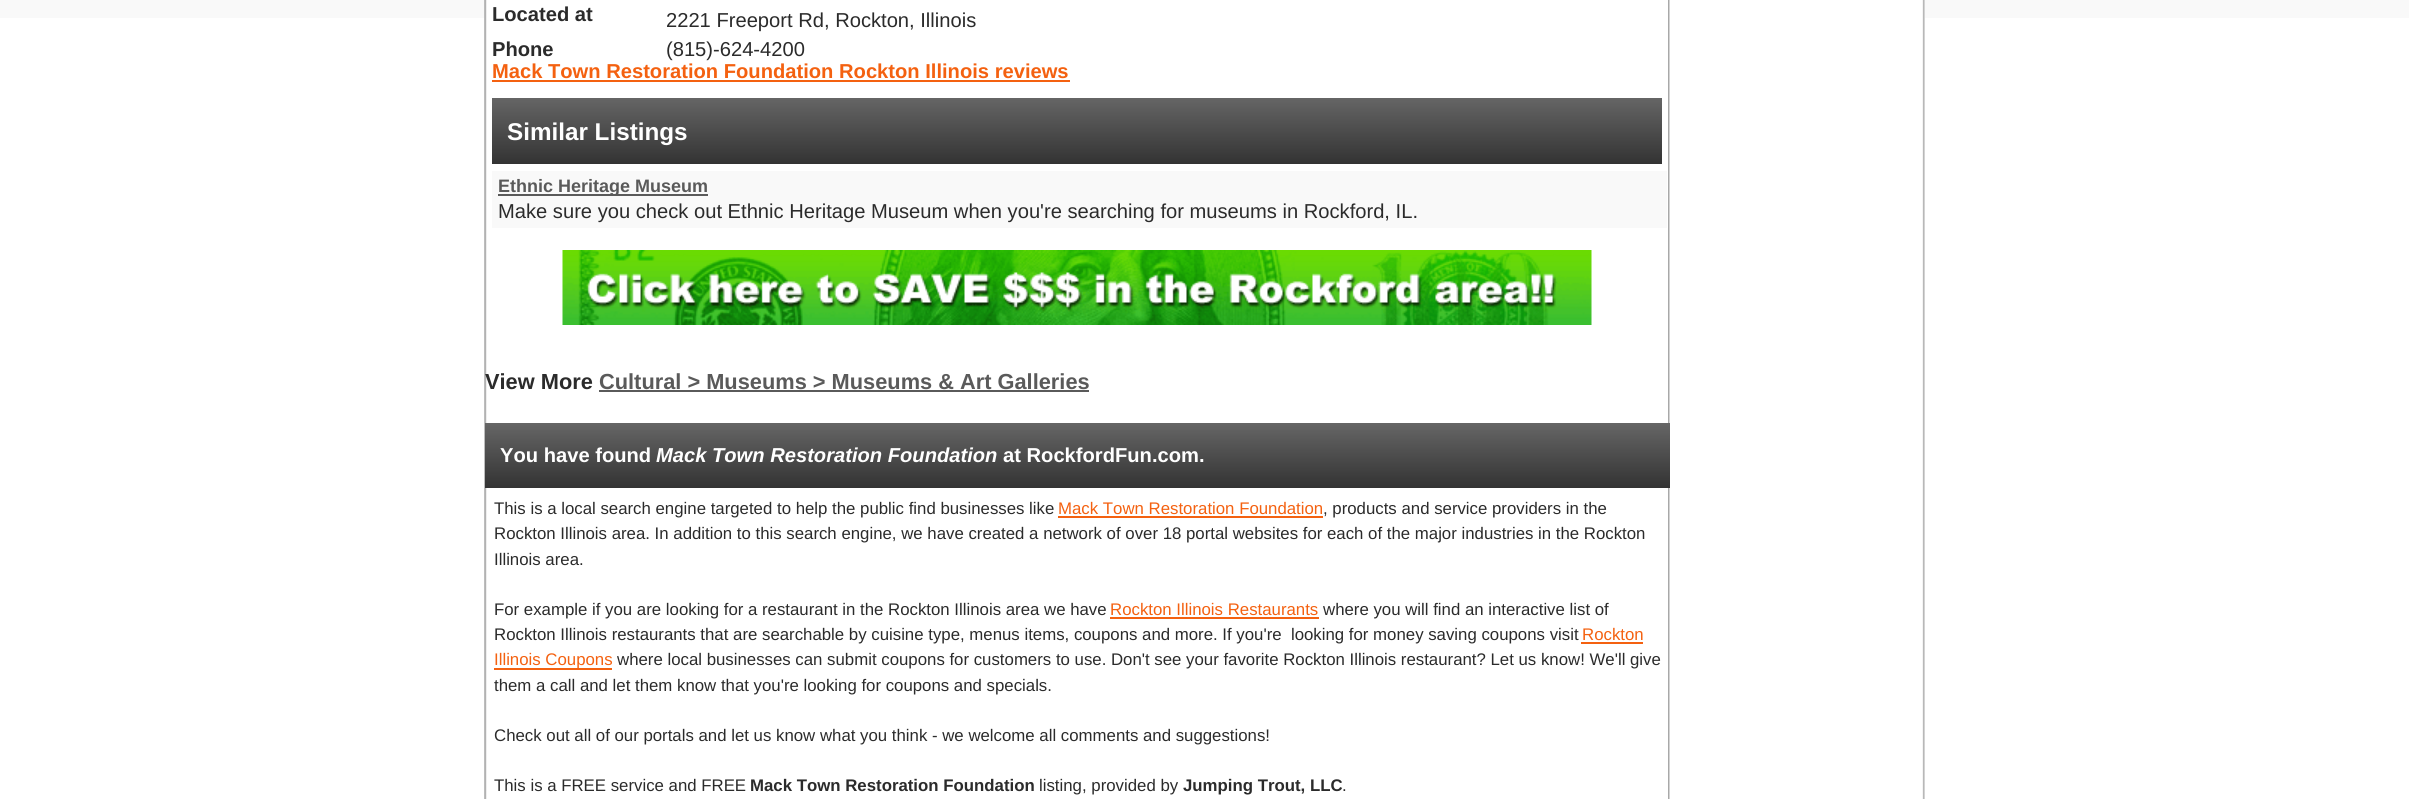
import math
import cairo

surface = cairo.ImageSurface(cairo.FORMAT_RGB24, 2409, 799)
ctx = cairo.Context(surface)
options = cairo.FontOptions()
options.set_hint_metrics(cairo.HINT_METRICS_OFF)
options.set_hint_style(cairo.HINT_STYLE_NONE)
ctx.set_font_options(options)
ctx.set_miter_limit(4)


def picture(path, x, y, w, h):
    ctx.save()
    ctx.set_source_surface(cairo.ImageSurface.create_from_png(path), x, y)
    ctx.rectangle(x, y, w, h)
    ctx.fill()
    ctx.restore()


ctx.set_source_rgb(1, 1, 1)
ctx.paint()
ctx.set_source_rgb(0.976, 0.976, 0.976)
ctx.rectangle(0, 0, 2409, 18)
ctx.fill()
picture("img1.png", 484, 0, 1, 799)
ctx.set_source_rgb(1, 1, 1)
ctx.rectangle(1924, 0, 1, 18)
ctx.fill()
picture("img2.png", 484, 0, 1441, 799)
picture("img3.png", 1668, 0, 2, 799)
ctx.select_font_face("Liberation Sans", cairo.FONT_SLANT_NORMAL, cairo.FONT_WEIGHT_BOLD)
ctx.set_font_size(20.15)
ctx.set_source_rgb(0.169, 0.169, 0.169)
ctx.move_to(492, 21)
ctx.show_text("Located at")
ctx.select_font_face("Liberation Sans")
ctx.move_to(666, 27)
ctx.show_text("2221 Freeport Rd, Rockton, Illinois")
ctx.select_font_face("Liberation Sans", cairo.FONT_SLANT_NORMAL, cairo.FONT_WEIGHT_BOLD)
ctx.move_to(492, 56)
ctx.show_text("Phone")
ctx.select_font_face("Liberation Sans")
ctx.move_to(666, 56)
ctx.show_text("(815)-624-4200")
ctx.select_font_face("Liberation Sans", cairo.FONT_SLANT_NORMAL, cairo.FONT_WEIGHT_BOLD)
ctx.set_source_rgb(0.957, 0.38, 0.063)
ctx.move_to(492, 78)
ctx.show_text("Mack Town Restoration Foundation Rockton Illinois reviews")
ctx.rectangle(492, 80, 578, 2)
ctx.fill()
gradient = cairo.LinearGradient(1077, 97, 1077, 164)
gradient.add_color_stop_rgba(0, 0.4, 0.4, 0.4, 1)
gradient.add_color_stop_rgba(1, 0.2, 0.2, 0.2, 1)
ctx.set_source(gradient)
ctx.rectangle(492, 98, 1170, 66)
ctx.fill()
ctx.set_font_size(24.25)
ctx.set_source_rgb(1, 1, 1)
ctx.move_to(507, 140)
ctx.show_text("Similar Listings")
ctx.set_source_rgb(0.973, 0.973, 0.973)
ctx.rectangle(492, 171, 1175, 57)
ctx.fill()
ctx.set_source_rgb(0.353, 0.353, 0.353)
ctx.rectangle(498, 194, 210, 2)
ctx.fill()
ctx.set_font_size(18)
ctx.move_to(498, 192)
ctx.show_text("Ethnic Heritage Museum")
ctx.select_font_face("Liberation Sans")
ctx.set_font_size(20.15)
ctx.set_source_rgb(0.169, 0.169, 0.169)
ctx.move_to(498, 218)
ctx.show_text("Make sure you check out Ethnic Heritage Museum when you're searching for museums in Rockford, IL.")
picture("img4.png", 562, 250, 1030, 75)
ctx.select_font_face("Liberation Sans", cairo.FONT_SLANT_NORMAL, cairo.FONT_WEIGHT_BOLD)
ctx.set_font_size(21.8)
ctx.move_to(485, 389)
ctx.show_text("View More")
ctx.set_source_rgb(0.353, 0.353, 0.353)
ctx.move_to(599, 389)
ctx.show_text("Cultural > Museums > Museums & Art Galleries")
ctx.rectangle(599, 390, 490, 2)
ctx.fill()
gradient = cairo.LinearGradient(1077, 423, 1077, 488)
gradient.add_color_stop_rgba(0, 0.4, 0.4, 0.4, 1)
gradient.add_color_stop_rgba(1, 0.2, 0.2, 0.2, 1)
ctx.set_source(gradient)
ctx.rectangle(485, 423, 1185, 65)
ctx.fill()
ctx.set_font_size(20.15)
ctx.set_source_rgb(1, 1, 1)
ctx.move_to(500, 462)
ctx.show_text("You have found")
ctx.select_font_face("Liberation Sans", cairo.FONT_SLANT_ITALIC, cairo.FONT_WEIGHT_BOLD)
ctx.move_to(656, 462)
ctx.show_text("Mack Town Restoration Foundation")
ctx.select_font_face("Liberation Sans", cairo.FONT_SLANT_NORMAL, cairo.FONT_WEIGHT_BOLD)
ctx.move_to(1003, 462)
ctx.show_text("at RockfordFun.com.")
ctx.select_font_face("Liberation Sans")
ctx.set_font_size(16.8)
ctx.set_source_rgb(0.169, 0.169, 0.169)
ctx.move_to(494, 514)
ctx.show_text("This is a local search engine targeted to help the public find businesses like")
ctx.set_source_rgb(0.957, 0.38, 0.063)
ctx.move_to(1058, 514)
ctx.show_text("Mack Town Restoration Foundation")
ctx.rectangle(1058, 516, 265, 2)
ctx.fill()
ctx.set_source_rgb(0.169, 0.169, 0.169)
ctx.move_to(1323, 514)
ctx.show_text(", products and service providers in the")
ctx.move_to(494, 539)
ctx.show_text("Rockton Illinois area. In addition to this search engine, we have created a network of over 18 portal websites for each of the major industries in the Rockton")
ctx.move_to(494, 565)
ctx.show_text("Illinois area.")
ctx.move_to(494, 615)
ctx.show_text("For example if you are looking for a restaurant in the Rockton Illinois area we have")
ctx.set_source_rgb(0.957, 0.38, 0.063)
ctx.move_to(1110, 615)
ctx.show_text("Rockton Illinois Restaurants")
ctx.rectangle(1110, 617, 209, 2)
ctx.fill()
ctx.set_source_rgb(0.169, 0.169, 0.169)
ctx.move_to(1323, 615)
ctx.show_text("where you will find an interactive list of")
ctx.move_to(494, 640)
ctx.show_text("Rockton Illinois restaurants that are searchable by cuisine type, menus items, coupons and more. If you're  looking for money saving coupons visit")
ctx.set_source_rgb(0.957, 0.38, 0.063)
ctx.move_to(1582, 640)
ctx.show_text("Rockton")
ctx.rectangle(1581, 642, 62, 2)
ctx.fill()
ctx.rectangle(494, 668, 118, 2)
ctx.fill()
ctx.move_to(494, 665)
ctx.show_text("Illinois Coupons")
ctx.set_source_rgb(0.169, 0.169, 0.169)
ctx.move_to(617, 665)
ctx.show_text("where local businesses can submit coupons for customers to use. Don't see your favorite Rockton Illinois restaurant? Let us know! We'll give")
ctx.move_to(494, 691)
ctx.show_text("them a call and let them know that you're looking for coupons and specials.")
ctx.move_to(494, 741)
ctx.show_text("Check out all of our portals and let us know what you think - we welcome all comments and suggestions!")
ctx.move_to(494, 791)
ctx.show_text("This is a FREE service and FREE")
ctx.select_font_face("Liberation Sans", cairo.FONT_SLANT_NORMAL, cairo.FONT_WEIGHT_BOLD)
ctx.move_to(750, 791)
ctx.show_text("Mack Town Restoration Foundation")
ctx.select_font_face("Liberation Sans")
ctx.move_to(1039, 791)
ctx.show_text("listing, provided by")
ctx.select_font_face("Liberation Sans", cairo.FONT_SLANT_NORMAL, cairo.FONT_WEIGHT_BOLD)
ctx.move_to(1183, 791)
ctx.show_text("Jumping Trout, LLC")
ctx.select_font_face("Liberation Sans")
ctx.move_to(1342, 791)
ctx.show_text(".")
surface.write_to_png("page.png")
